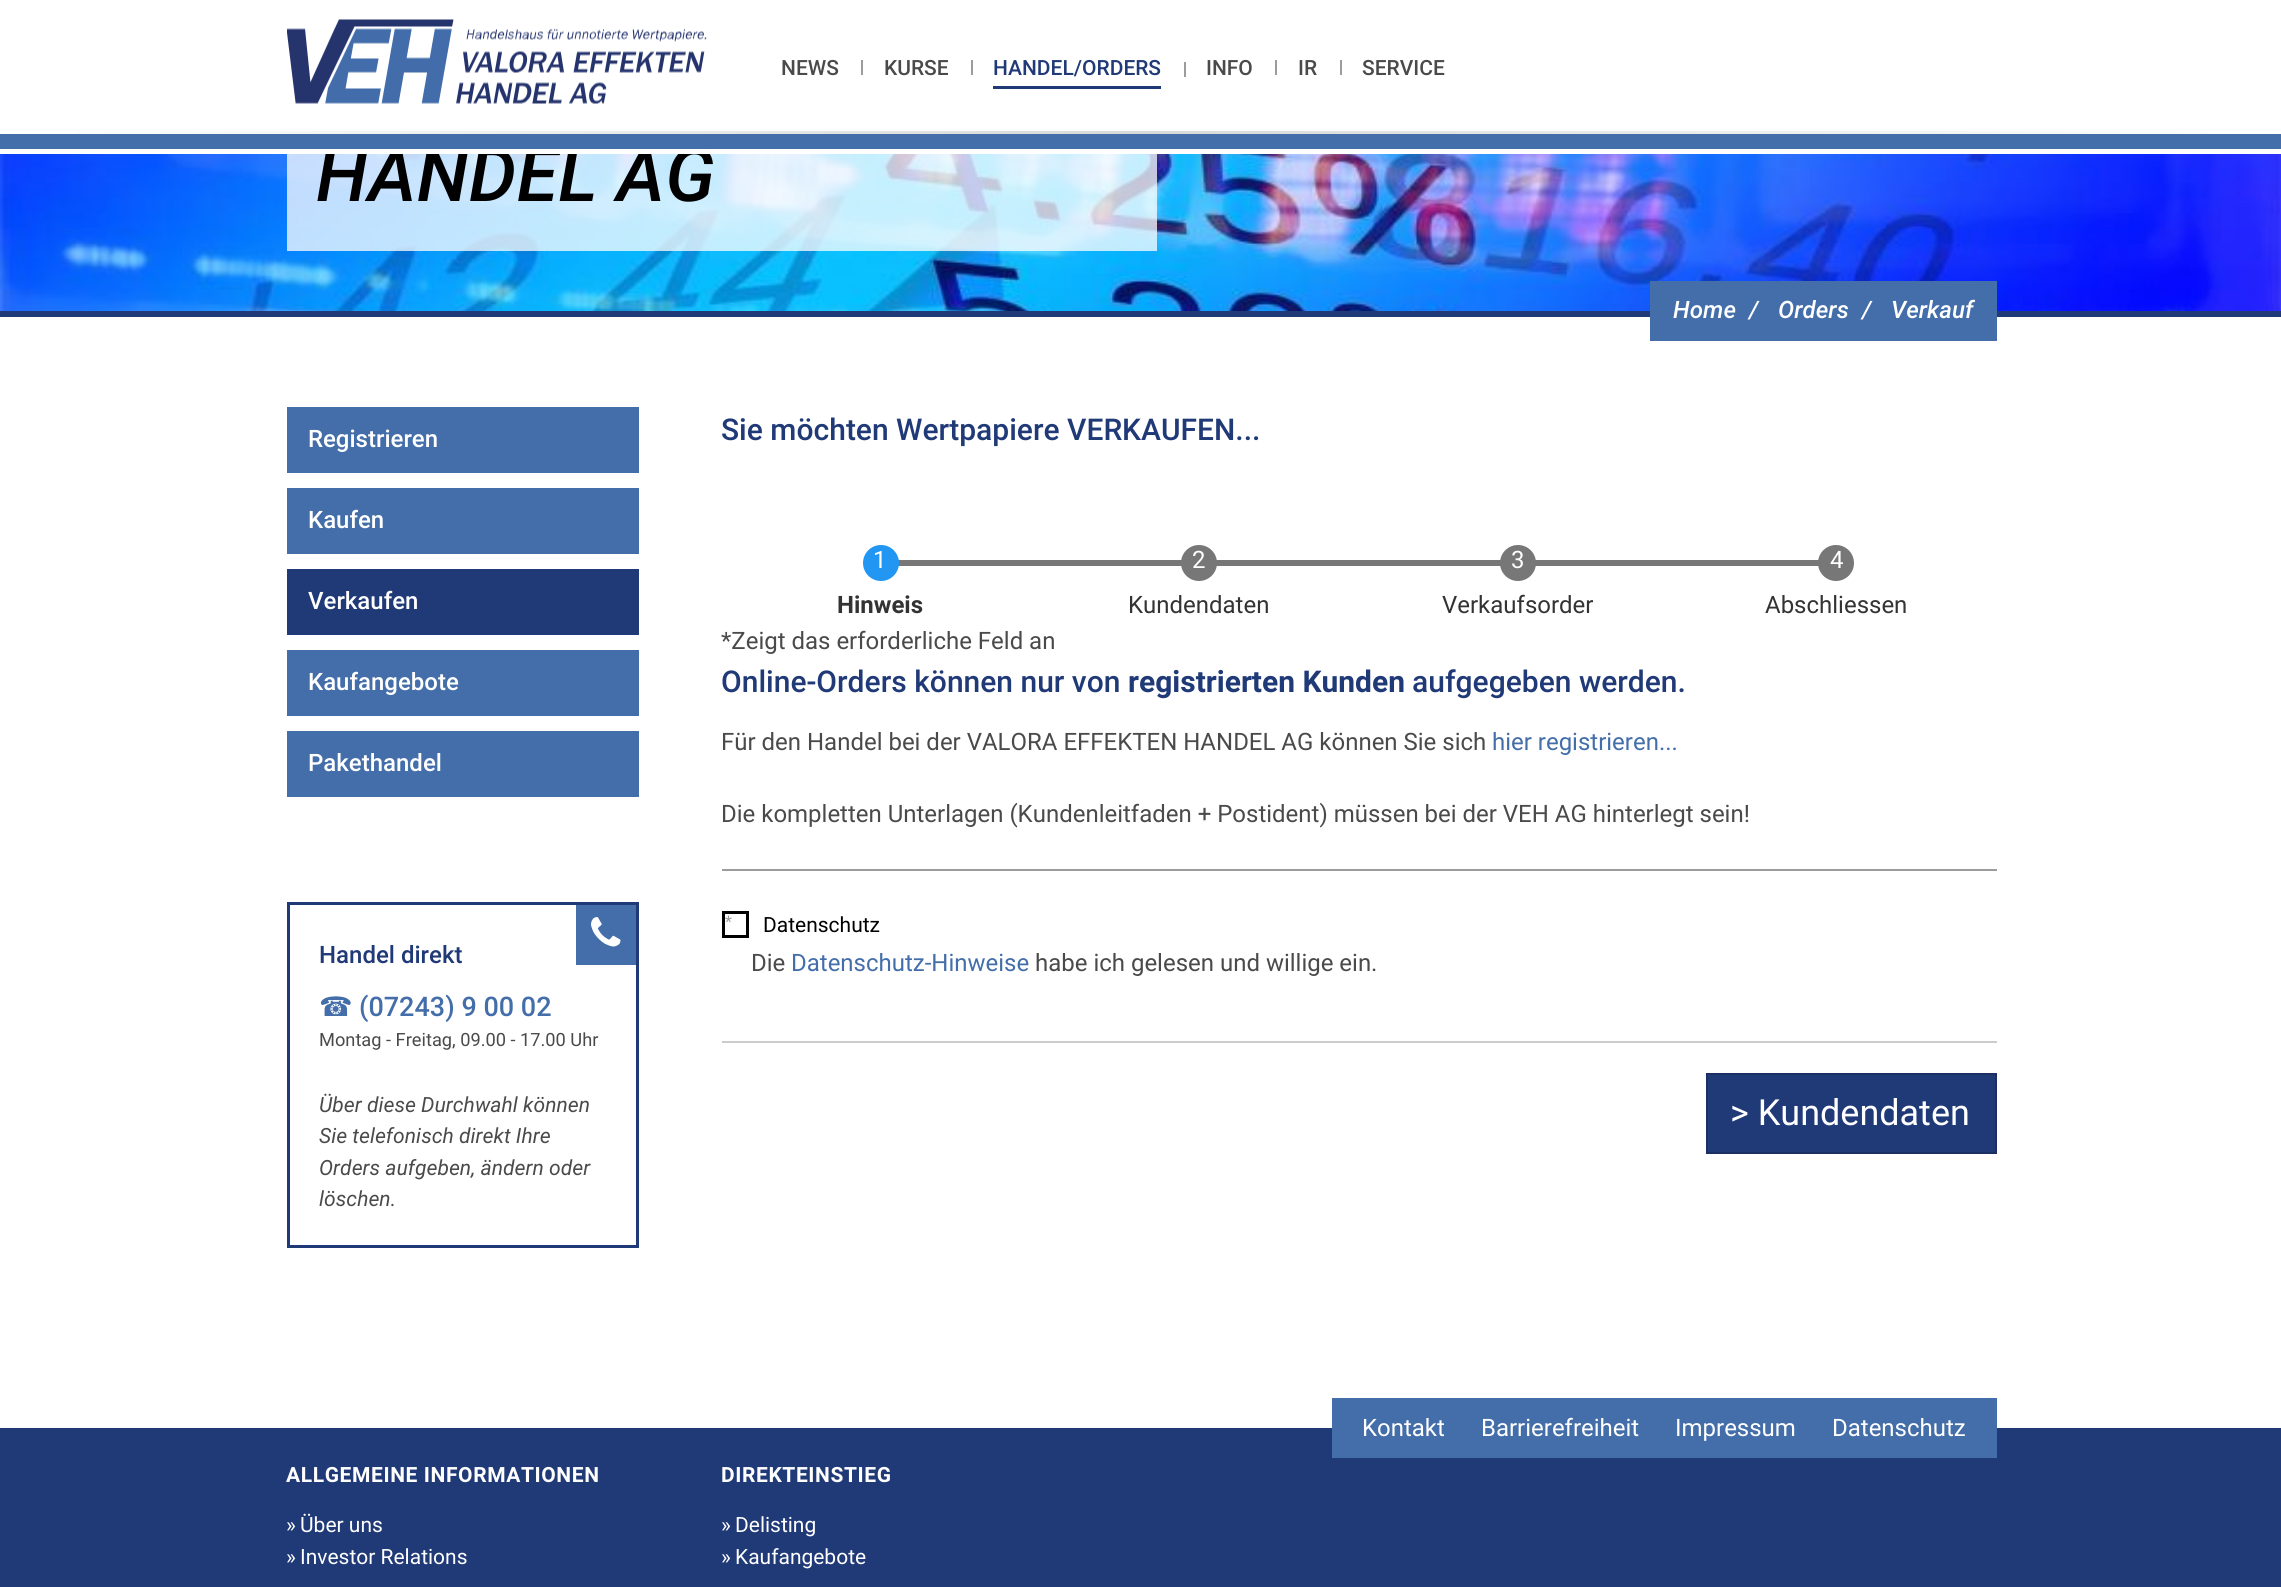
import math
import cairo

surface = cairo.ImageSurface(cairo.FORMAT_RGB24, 2281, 1587)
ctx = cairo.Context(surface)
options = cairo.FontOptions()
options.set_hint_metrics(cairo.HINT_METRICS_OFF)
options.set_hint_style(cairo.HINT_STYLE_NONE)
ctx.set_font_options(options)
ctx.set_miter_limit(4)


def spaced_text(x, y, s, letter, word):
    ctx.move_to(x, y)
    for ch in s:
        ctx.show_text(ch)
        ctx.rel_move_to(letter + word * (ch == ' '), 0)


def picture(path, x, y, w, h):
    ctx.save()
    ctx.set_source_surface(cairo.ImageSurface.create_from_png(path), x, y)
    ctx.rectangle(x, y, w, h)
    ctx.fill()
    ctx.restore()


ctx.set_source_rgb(1, 1, 1)
ctx.paint()
picture("img2.png", 0, 154, 2281, 157)
ctx.set_source_rgba(1, 1, 1, 0.75)
ctx.rectangle(287, 154, 870, 97)
ctx.fill()
ctx.select_font_face("Roboto Medium", cairo.FONT_SLANT_ITALIC)
ctx.set_font_size(75)
ctx.set_source_rgb(0, 0, 0)
ctx.move_to(316, 201)
ctx.show_text("HANDEL AG")
ctx.set_source_rgb(1, 1, 1)
ctx.rectangle(325, 152, 385, 2)
ctx.fill()
picture("img1.png", 287, 19, 420, 85)
ctx.select_font_face("Roboto Medium")
ctx.set_font_size(21)
ctx.set_source_rgb(0.29, 0.29, 0.29)
ctx.move_to(781, 75)
ctx.show_text("NEWS")
ctx.set_source_rgb(0.612, 0.612, 0.612)
ctx.rectangle(861, 60, 2, 15)
ctx.fill()
ctx.set_source_rgb(0.29, 0.29, 0.29)
ctx.move_to(884, 75)
ctx.show_text("KURSE")
ctx.set_source_rgb(0.612, 0.612, 0.612)
ctx.rectangle(971, 60, 2, 15)
ctx.fill()
ctx.set_source_rgb(0.125, 0.224, 0.467)
ctx.rectangle(993, 86, 168, 3)
ctx.fill()
ctx.move_to(993, 75)
ctx.show_text("HANDEL/ORDERS")
ctx.set_source_rgb(0.612, 0.612, 0.612)
ctx.rectangle(1184, 62, 2, 15)
ctx.fill()
ctx.set_source_rgb(0.29, 0.29, 0.29)
ctx.move_to(1206, 75)
ctx.show_text("INFO")
ctx.set_source_rgb(0.612, 0.612, 0.612)
ctx.rectangle(1275, 60, 2, 15)
ctx.fill()
ctx.set_source_rgb(0.29, 0.29, 0.29)
ctx.move_to(1298, 75)
ctx.show_text("IR")
ctx.set_source_rgb(0.612, 0.612, 0.612)
ctx.rectangle(1340, 60, 2, 15)
ctx.fill()
ctx.set_source_rgb(0.29, 0.29, 0.29)
ctx.move_to(1362, 75)
ctx.show_text("SERVICE")
gradient = cairo.LinearGradient(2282, 132, 0, 132)
gradient.add_color_stop_rgba(0, 1, 1, 1, 1)
gradient.add_color_stop_rgba(0.5, 0.851, 0.851, 0.851, 1)
gradient.add_color_stop_rgba(1, 1, 1, 1, 1)
ctx.set_source(gradient)
ctx.rectangle(75, 131, 2132, 3)
ctx.fill()
ctx.set_source_rgb(0.263, 0.431, 0.667)
ctx.rectangle(0, 134, 2281, 15)
ctx.fill()
ctx.set_source_rgb(1, 1, 1)
ctx.rectangle(325, 149, 383, 3)
ctx.fill()
ctx.set_source_rgb(0.125, 0.224, 0.467)
ctx.rectangle(0, 311, 2281, 6)
ctx.fill()
ctx.set_source_rgb(0.263, 0.431, 0.667)
ctx.rectangle(1650, 281, 347, 60)
ctx.fill()
ctx.select_font_face("Roboto Medium", cairo.FONT_SLANT_ITALIC)
ctx.set_font_size(24)
ctx.set_source_rgb(1, 1, 1)
ctx.move_to(1673, 318)
ctx.show_text("Home")
ctx.move_to(1749, 318)
ctx.show_text("/")
ctx.move_to(1778, 318)
ctx.show_text("Orders")
ctx.move_to(1862, 318)
ctx.show_text("/")
ctx.move_to(1891, 318)
ctx.show_text("Verkauf")
ctx.set_source_rgb(0.263, 0.431, 0.667)
ctx.rectangle(287, 407, 352, 66)
ctx.fill()
ctx.select_font_face("Roboto Medium")
ctx.set_source_rgb(1, 1, 1)
ctx.move_to(308, 447)
ctx.show_text("Registrieren")
ctx.set_source_rgb(0.263, 0.431, 0.667)
ctx.rectangle(287, 488, 352, 66)
ctx.fill()
ctx.set_source_rgb(1, 1, 1)
ctx.move_to(308, 528)
ctx.show_text("Kaufen")
ctx.set_source_rgb(0.125, 0.224, 0.467)
ctx.rectangle(287, 569, 352, 66)
ctx.fill()
ctx.set_source_rgb(1, 1, 1)
ctx.move_to(308, 609)
ctx.show_text("Verkaufen")
ctx.set_source_rgb(0.263, 0.431, 0.667)
ctx.rectangle(287, 650, 352, 66)
ctx.fill()
ctx.set_source_rgb(1, 1, 1)
ctx.move_to(308, 690)
ctx.show_text("Kaufangebote")
ctx.set_source_rgb(0.263, 0.431, 0.667)
ctx.rectangle(287, 731, 352, 66)
ctx.fill()
ctx.set_source_rgb(1, 1, 1)
ctx.move_to(308, 771)
ctx.show_text("Pakethandel")
ctx.rectangle(288.5, 903.5, 349, 343)
ctx.set_source_rgb(0.125, 0.224, 0.467)
ctx.set_line_width(3)
ctx.stroke()
ctx.move_to(319, 963)
ctx.show_text("Handel direkt")
ctx.set_source_rgb(0.263, 0.431, 0.667)
ctx.rectangle(576, 905, 60, 60)
ctx.fill()
picture("img3.png", 591, 917, 30, 30)
ctx.select_font_face("DejaVu Sans")
ctx.set_font_size(27)
ctx.move_to(319, 1016)
ctx.show_text("☎")
ctx.select_font_face("Roboto Medium")
ctx.move_to(359, 1016)
ctx.show_text("(07243) 9 00 02")
ctx.select_font_face("Roboto")
ctx.set_font_size(18.25)
ctx.set_source_rgb(0.29, 0.29, 0.29)
ctx.move_to(319, 1046)
ctx.show_text("Montag - Freitag, 09.00 - 17.00 Uhr")
ctx.select_font_face("Roboto", cairo.FONT_SLANT_ITALIC)
ctx.set_font_size(21)
ctx.move_to(319, 1112)
ctx.show_text("Über diese Durchwahl können")
ctx.move_to(319, 1143)
ctx.show_text("Sie telefonisch direkt Ihre")
ctx.move_to(319, 1175)
ctx.show_text("Orders aufgeben, ändern oder")
ctx.move_to(319, 1206)
ctx.show_text("löschen.")
ctx.select_font_face("Roboto Medium")
ctx.set_font_size(30)
ctx.set_source_rgb(0.125, 0.224, 0.467)
ctx.move_to(721, 440)
ctx.show_text("Sie möchten Wertpapiere VERKAUFEN...")
ctx.set_source_rgb(0.467, 0.467, 0.467)
ctx.rectangle(898, 560, 284, 6)
ctx.fill()
ctx.set_source_rgb(0.129, 0.588, 0.953)
ctx.arc(881, 563, 18, 0, 2 * math.pi)
ctx.fill()
ctx.select_font_face("Roboto")
ctx.set_font_size(24)
ctx.set_source_rgb(1, 1, 1)
ctx.move_to(873, 568)
ctx.show_text("1")
ctx.select_font_face("Roboto", cairo.FONT_SLANT_NORMAL, cairo.FONT_WEIGHT_BOLD)
ctx.set_source_rgb(0.2, 0.2, 0.2)
ctx.move_to(837, 613)
ctx.show_text("Hinweis")
ctx.set_source_rgb(0.467, 0.467, 0.467)
ctx.rectangle(1216, 560, 285, 6)
ctx.fill()
ctx.arc(1199, 563, 18, 0, 2 * math.pi)
ctx.fill()
ctx.select_font_face("Roboto")
ctx.set_source_rgb(1, 1, 1)
ctx.move_to(1192, 568)
ctx.show_text("2")
ctx.set_source_rgb(0.2, 0.2, 0.2)
ctx.move_to(1128, 613)
ctx.show_text("Kundendaten")
ctx.set_source_rgb(0.467, 0.467, 0.467)
ctx.rectangle(1535, 560, 284, 6)
ctx.fill()
ctx.arc(1518, 563, 18, 0, 2 * math.pi)
ctx.fill()
ctx.set_source_rgb(1, 1, 1)
ctx.move_to(1511, 568)
ctx.show_text("3")
ctx.set_source_rgb(0.2, 0.2, 0.2)
ctx.move_to(1442, 613)
ctx.show_text("Verkaufsorder")
ctx.set_source_rgb(0.467, 0.467, 0.467)
ctx.new_path()
ctx.arc(1836, 563, 18, 0, 2 * math.pi)
ctx.fill()
ctx.set_source_rgb(1, 1, 1)
ctx.move_to(1830, 568)
ctx.show_text("4")
ctx.set_source_rgb(0.2, 0.2, 0.2)
ctx.move_to(1765, 613)
ctx.show_text("Abschliessen")
ctx.set_source_rgb(0.29, 0.29, 0.29)
ctx.move_to(721, 649)
ctx.show_text("*Zeigt das erforderliche Feld an")
ctx.select_font_face("Roboto Medium")
ctx.set_font_size(30)
ctx.set_source_rgb(0.125, 0.224, 0.467)
ctx.move_to(721, 692)
ctx.show_text("Online-Orders können nur von")
ctx.select_font_face("Roboto", cairo.FONT_SLANT_NORMAL, cairo.FONT_WEIGHT_BOLD)
ctx.move_to(1128, 692)
ctx.show_text("registrierten Kunden")
ctx.select_font_face("Roboto Medium")
ctx.move_to(1412, 692)
ctx.show_text("aufgegeben werden.")
ctx.select_font_face("Roboto")
ctx.set_font_size(24)
ctx.set_source_rgb(0.29, 0.29, 0.29)
ctx.move_to(721, 750)
ctx.show_text("Für den Handel bei der VALORA EFFEKTEN HANDEL AG können Sie sich")
ctx.set_source_rgb(0.263, 0.431, 0.667)
ctx.move_to(1492, 750)
ctx.show_text("hier registrieren...")
ctx.set_source_rgb(0.29, 0.29, 0.29)
ctx.move_to(721, 822)
ctx.show_text("Die kompletten Unterlagen (Kundenleitfaden + Postident) müssen bei der VEH AG hinterlegt sein!")
ctx.set_source_rgb(0.612, 0.612, 0.612)
ctx.rectangle(722, 869, 1275, 2)
ctx.fill()
ctx.rectangle(723.5, 912.5, 24, 24)
ctx.set_source_rgb(0, 0, 0)
ctx.stroke()
ctx.set_font_size(16)
ctx.set_source_rgb(0.612, 0.612, 0.612)
ctx.move_to(725, 927)
ctx.show_text("*")
ctx.set_font_size(21)
ctx.set_source_rgb(0, 0, 0)
ctx.move_to(763, 932)
ctx.show_text("Datenschutz")
ctx.set_font_size(24)
ctx.set_source_rgb(0.29, 0.29, 0.29)
ctx.move_to(751, 971)
ctx.show_text("Die")
ctx.set_source_rgb(0.263, 0.431, 0.667)
ctx.move_to(791, 971)
ctx.show_text("Datenschutz-Hinweise")
ctx.set_source_rgb(0.29, 0.29, 0.29)
ctx.move_to(1035, 971)
ctx.show_text("habe ich gelesen und willige ein.")
ctx.set_source_rgb(0.8, 0.8, 0.8)
ctx.rectangle(722, 1041, 1275, 2)
ctx.fill()
ctx.set_source_rgb(0.125, 0.224, 0.467)
ctx.rectangle(1707, 1074, 289, 79)
ctx.fill_preserve()
ctx.set_source_rgb(0.106, 0.184, 0.388)
ctx.set_line_width(2)
ctx.stroke()
ctx.set_font_size(36)
ctx.set_source_rgb(1, 1, 1)
ctx.move_to(1730, 1125)
ctx.show_text("> Kundendaten")
ctx.set_source_rgb(0.125, 0.224, 0.467)
ctx.rectangle(0, 1428, 2281, 159)
ctx.fill()
ctx.set_source_rgb(0.263, 0.431, 0.667)
ctx.rectangle(1332, 1398, 665, 60)
ctx.fill()
ctx.set_font_size(24)
ctx.set_source_rgb(1, 1, 1)
ctx.move_to(1362, 1436)
ctx.show_text("Kontakt")
ctx.move_to(1481, 1436)
ctx.show_text("Barrierefreiheit")
ctx.move_to(1675, 1436)
ctx.show_text("Impressum")
ctx.move_to(1832, 1436)
ctx.show_text("Datenschutz")
ctx.select_font_face("Roboto", cairo.FONT_SLANT_NORMAL, cairo.FONT_WEIGHT_BOLD)
ctx.set_font_size(21)
spaced_text(286, 1482, "ALLGEMEINE INFORMATIONEN", 0.6, 0)
ctx.select_font_face("Roboto")
ctx.move_to(286, 1532)
ctx.show_text("»")
ctx.move_to(300, 1532)
ctx.show_text("Über uns")
ctx.move_to(286, 1564)
ctx.show_text("»")
ctx.move_to(300, 1564)
ctx.show_text("Investor Relations")
ctx.select_font_face("Roboto", cairo.FONT_SLANT_NORMAL, cairo.FONT_WEIGHT_BOLD)
spaced_text(721, 1482, "DIREKTEINSTIEG", 0.6, 0)
ctx.select_font_face("Roboto")
ctx.move_to(721, 1532)
ctx.show_text("»")
ctx.move_to(735, 1532)
ctx.show_text("Delisting")
ctx.move_to(721, 1564)
ctx.show_text("»")
ctx.move_to(735, 1564)
ctx.show_text("Kaufangebote")
surface.write_to_png("page.png")
